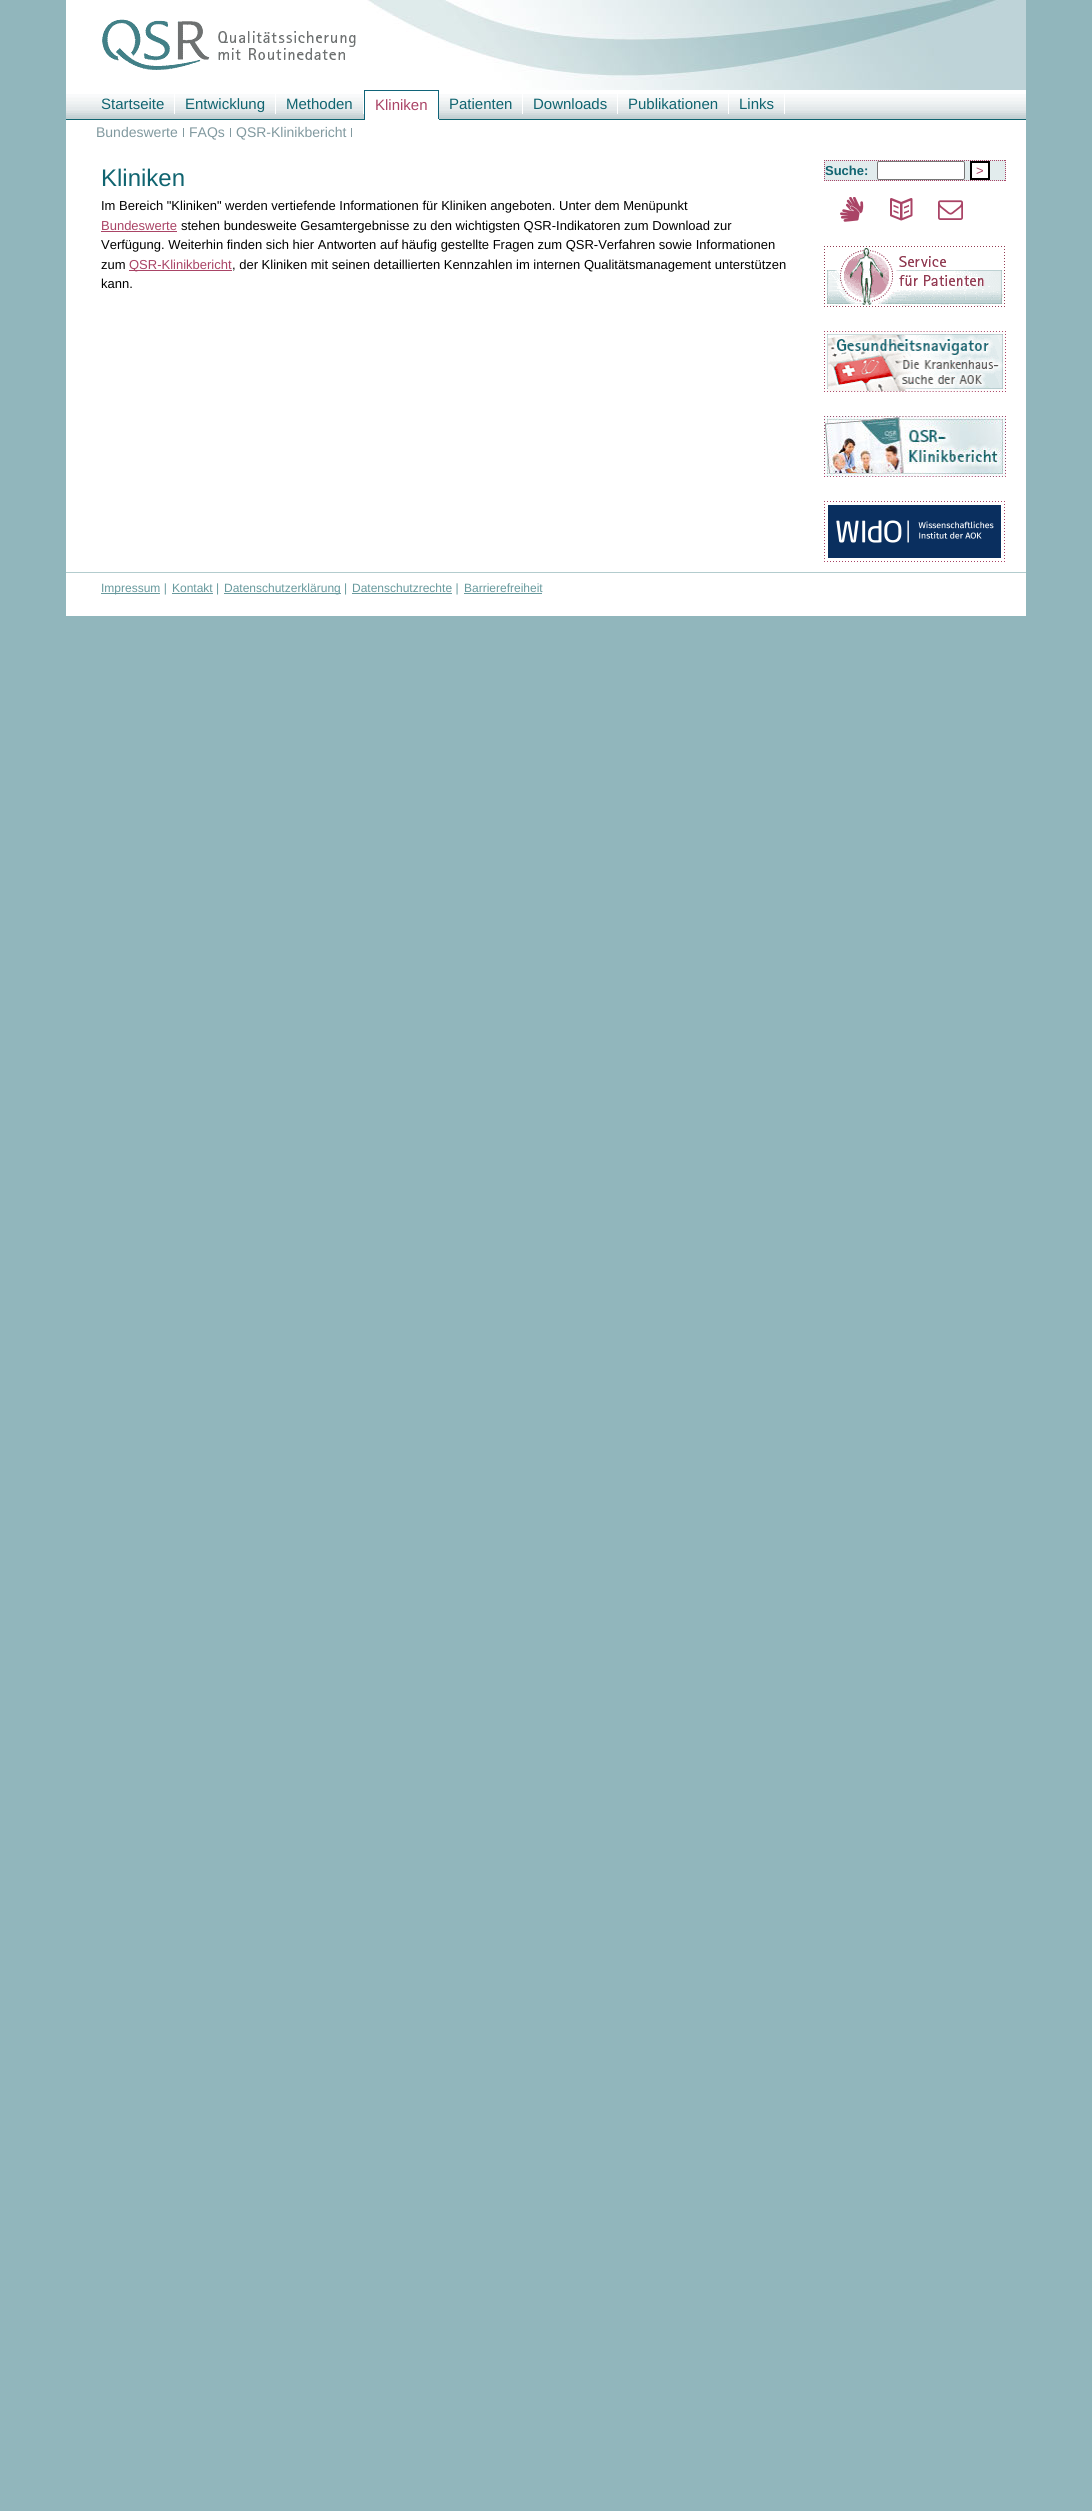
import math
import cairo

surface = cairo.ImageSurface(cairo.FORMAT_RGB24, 1092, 2511)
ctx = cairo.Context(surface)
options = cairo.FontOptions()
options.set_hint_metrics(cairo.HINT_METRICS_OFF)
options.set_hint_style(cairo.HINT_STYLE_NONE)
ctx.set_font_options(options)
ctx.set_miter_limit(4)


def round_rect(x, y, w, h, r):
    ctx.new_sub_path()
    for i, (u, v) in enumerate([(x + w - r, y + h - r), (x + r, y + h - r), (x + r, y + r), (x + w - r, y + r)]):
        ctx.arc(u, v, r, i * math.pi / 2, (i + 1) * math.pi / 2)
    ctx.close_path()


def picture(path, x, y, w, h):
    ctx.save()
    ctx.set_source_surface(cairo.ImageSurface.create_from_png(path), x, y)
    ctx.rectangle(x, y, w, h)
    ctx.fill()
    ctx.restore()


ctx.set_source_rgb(0.569, 0.714, 0.737)
ctx.paint()
ctx.set_source_rgb(1, 1, 1)
ctx.rectangle(66, 0, 960, 616)
ctx.fill()
picture("img1.png", 367, 0, 659, 90)
picture("img2.png", 102, 19, 254, 51)
picture("img3.png", 66, 94, 960, 26)
ctx.rectangle(174, 90, 1, 24)
ctx.fill()
ctx.select_font_face("Liberation Sans")
ctx.set_font_size(15)
ctx.set_source_rgb(0.063, 0.392, 0.439)
ctx.move_to(101, 109)
ctx.show_text("Startseite")
ctx.set_source_rgb(1, 1, 1)
ctx.rectangle(275, 90, 1, 24)
ctx.fill()
ctx.set_source_rgb(0.063, 0.392, 0.439)
ctx.move_to(185, 109)
ctx.show_text("Entwicklung")
ctx.set_source_rgb(1, 1, 1)
ctx.rectangle(363, 90, 1, 24)
ctx.fill()
ctx.set_source_rgb(0.063, 0.392, 0.439)
ctx.move_to(286, 109)
ctx.show_text("Methoden")
ctx.set_source_rgb(1, 1, 1)
ctx.rectangle(522, 90, 1, 24)
ctx.fill()
ctx.set_source_rgb(0.063, 0.392, 0.439)
ctx.move_to(449, 109)
ctx.show_text("Patienten")
ctx.set_source_rgb(1, 1, 1)
ctx.rectangle(617, 90, 1, 24)
ctx.fill()
ctx.set_source_rgb(0.063, 0.392, 0.439)
ctx.move_to(533, 109)
ctx.show_text("Downloads")
ctx.set_source_rgb(1, 1, 1)
ctx.rectangle(728, 90, 1, 24)
ctx.fill()
ctx.set_source_rgb(0.063, 0.392, 0.439)
ctx.move_to(628, 109)
ctx.show_text("Publikationen")
ctx.set_source_rgb(1, 1, 1)
ctx.rectangle(784, 90, 1, 24)
ctx.fill()
ctx.set_source_rgb(0.063, 0.392, 0.439)
ctx.move_to(739, 109)
ctx.show_text("Links")
ctx.set_source_rgb(1, 1, 1)
ctx.rectangle(365, 94, 73, 25)
ctx.fill()
ctx.set_source_rgb(0.063, 0.392, 0.475)
ctx.rectangle(364, 90, 75, 1)
ctx.fill()
ctx.rectangle(438, 90, 1, 30)
ctx.fill()
ctx.set_source_rgb(1, 1, 1)
ctx.rectangle(364, 119, 75, 1)
ctx.fill()
ctx.set_source_rgb(0.063, 0.392, 0.475)
ctx.rectangle(364, 90, 1, 30)
ctx.fill()
ctx.set_source_rgb(0.667, 0.267, 0.4)
ctx.move_to(375, 110)
ctx.show_text("Kliniken")
ctx.set_source_rgb(0.506, 0.6, 0.624)
ctx.rectangle(183, 128, 1, 9)
ctx.fill()
ctx.set_font_size(14)
ctx.move_to(96, 137)
ctx.show_text("Bundeswerte")
ctx.rectangle(230, 128, 1, 9)
ctx.fill()
ctx.move_to(189, 137)
ctx.show_text("FAQs")
ctx.rectangle(351, 128, 1, 9)
ctx.fill()
ctx.move_to(236, 137)
ctx.show_text("QSR-Klinikbericht")
ctx.set_font_size(24)
ctx.set_source_rgb(0.063, 0.392, 0.439)
ctx.move_to(101, 186)
ctx.show_text("Kliniken")
ctx.set_font_size(13)
ctx.set_source_rgb(0, 0, 0)
ctx.move_to(101, 210)
ctx.show_text("Im Bereich \"Kliniken\" werden vertiefende Informationen für Kliniken angeboten. Unter dem Menüpunkt")
ctx.set_source_rgb(0.667, 0.267, 0.4)
ctx.move_to(101, 230)
ctx.show_text("Bundeswerte")
ctx.rectangle(101, 231, 76, 1)
ctx.fill()
ctx.set_source_rgb(0, 0, 0)
ctx.move_to(181, 230)
ctx.show_text("stehen bundesweite Gesamtergebnisse zu den wichtigsten QSR-Indikatoren zum Download zur")
ctx.move_to(101, 249)
ctx.show_text("Verfügung. Weiterhin finden sich hier Antworten auf häufig gestellte Fragen zum QSR-Verfahren sowie Informationen")
ctx.move_to(101, 269)
ctx.show_text("zum")
ctx.set_source_rgb(0.667, 0.267, 0.4)
ctx.rectangle(129, 270, 103, 1)
ctx.fill()
ctx.move_to(129, 269)
ctx.show_text("QSR-Klinikbericht")
ctx.set_source_rgb(0, 0, 0)
ctx.move_to(232, 269)
ctx.show_text(", der Kliniken mit seinen detaillierten Kennzahlen im internen Qualitätsmanagement unterstützen")
ctx.move_to(101, 288)
ctx.show_text("kann.")
ctx.set_source_rgb(0.886, 0.925, 0.929)
ctx.rectangle(824, 160, 182, 21)
ctx.fill()
ctx.new_path()
ctx.move_to(824, 160.5)
ctx.line_to(1006, 160.5)
ctx.set_source_rgb(0.667, 0.267, 0.4)
ctx.set_line_width(1)
ctx.set_dash([1, 1])
ctx.stroke()
ctx.new_path()
ctx.move_to(1005.5, 160)
ctx.line_to(1005.5, 181)
ctx.stroke()
ctx.new_path()
ctx.move_to(824, 180.5)
ctx.line_to(1006, 180.5)
ctx.stroke()
ctx.new_path()
ctx.move_to(824.5, 160)
ctx.line_to(824.5, 181)
ctx.stroke()
ctx.select_font_face("Liberation Sans", cairo.FONT_SLANT_NORMAL, cairo.FONT_WEIGHT_BOLD)
ctx.set_source_rgb(0.063, 0.392, 0.439)
ctx.move_to(825, 175)
ctx.show_text("Suche:")
ctx.set_source_rgb(1, 1, 1)
round_rect(877.5, 161.5, 87, 18, 1.5)
ctx.fill_preserve()
ctx.set_source_rgb(0.463, 0.463, 0.463)
ctx.set_dash([])
ctx.stroke()
ctx.set_source_rgb(1, 1, 1)
ctx.rectangle(971, 162, 18, 17)
ctx.fill_preserve()
ctx.set_source_rgb(0, 0, 0)
ctx.set_line_width(2)
ctx.stroke()
ctx.select_font_face("Liberation Sans")
ctx.set_source_rgb(0.667, 0.267, 0.4)
ctx.move_to(976, 175)
ctx.show_text(">")
picture("img4.png", 840, 197, 24, 25)
picture("img5.png", 890, 198, 23, 23)
picture("img6.png", 938, 200, 25, 20)
picture("img7.png", 824, 246, 181, 61)
picture("img8.png", 824, 331, 182, 61)
picture("img9.png", 824, 416, 182, 61)
picture("img10.png", 824, 501, 181, 61)
ctx.set_source_rgb(0.702, 0.8, 0.808)
ctx.rectangle(66, 572, 960, 1)
ctx.fill()
ctx.set_source_rgb(0.404, 0.6, 0.616)
ctx.rectangle(101, 593, 59, 1)
ctx.fill()
ctx.set_font_size(12)
ctx.move_to(101, 592)
ctx.show_text("Impressum |")
ctx.rectangle(172, 593, 41, 1)
ctx.fill()
ctx.move_to(172, 592)
ctx.show_text("Kontakt |")
ctx.rectangle(224, 593, 117, 1)
ctx.fill()
ctx.move_to(224, 592)
ctx.show_text("Datenschutzerklärung |")
ctx.rectangle(352, 593, 100, 1)
ctx.fill()
ctx.move_to(352, 592)
ctx.show_text("Datenschutzrechte |")
ctx.move_to(464, 592)
ctx.show_text("Barrierefreiheit")
ctx.rectangle(464, 593, 78, 1)
ctx.fill()
surface.write_to_png("page.png")
